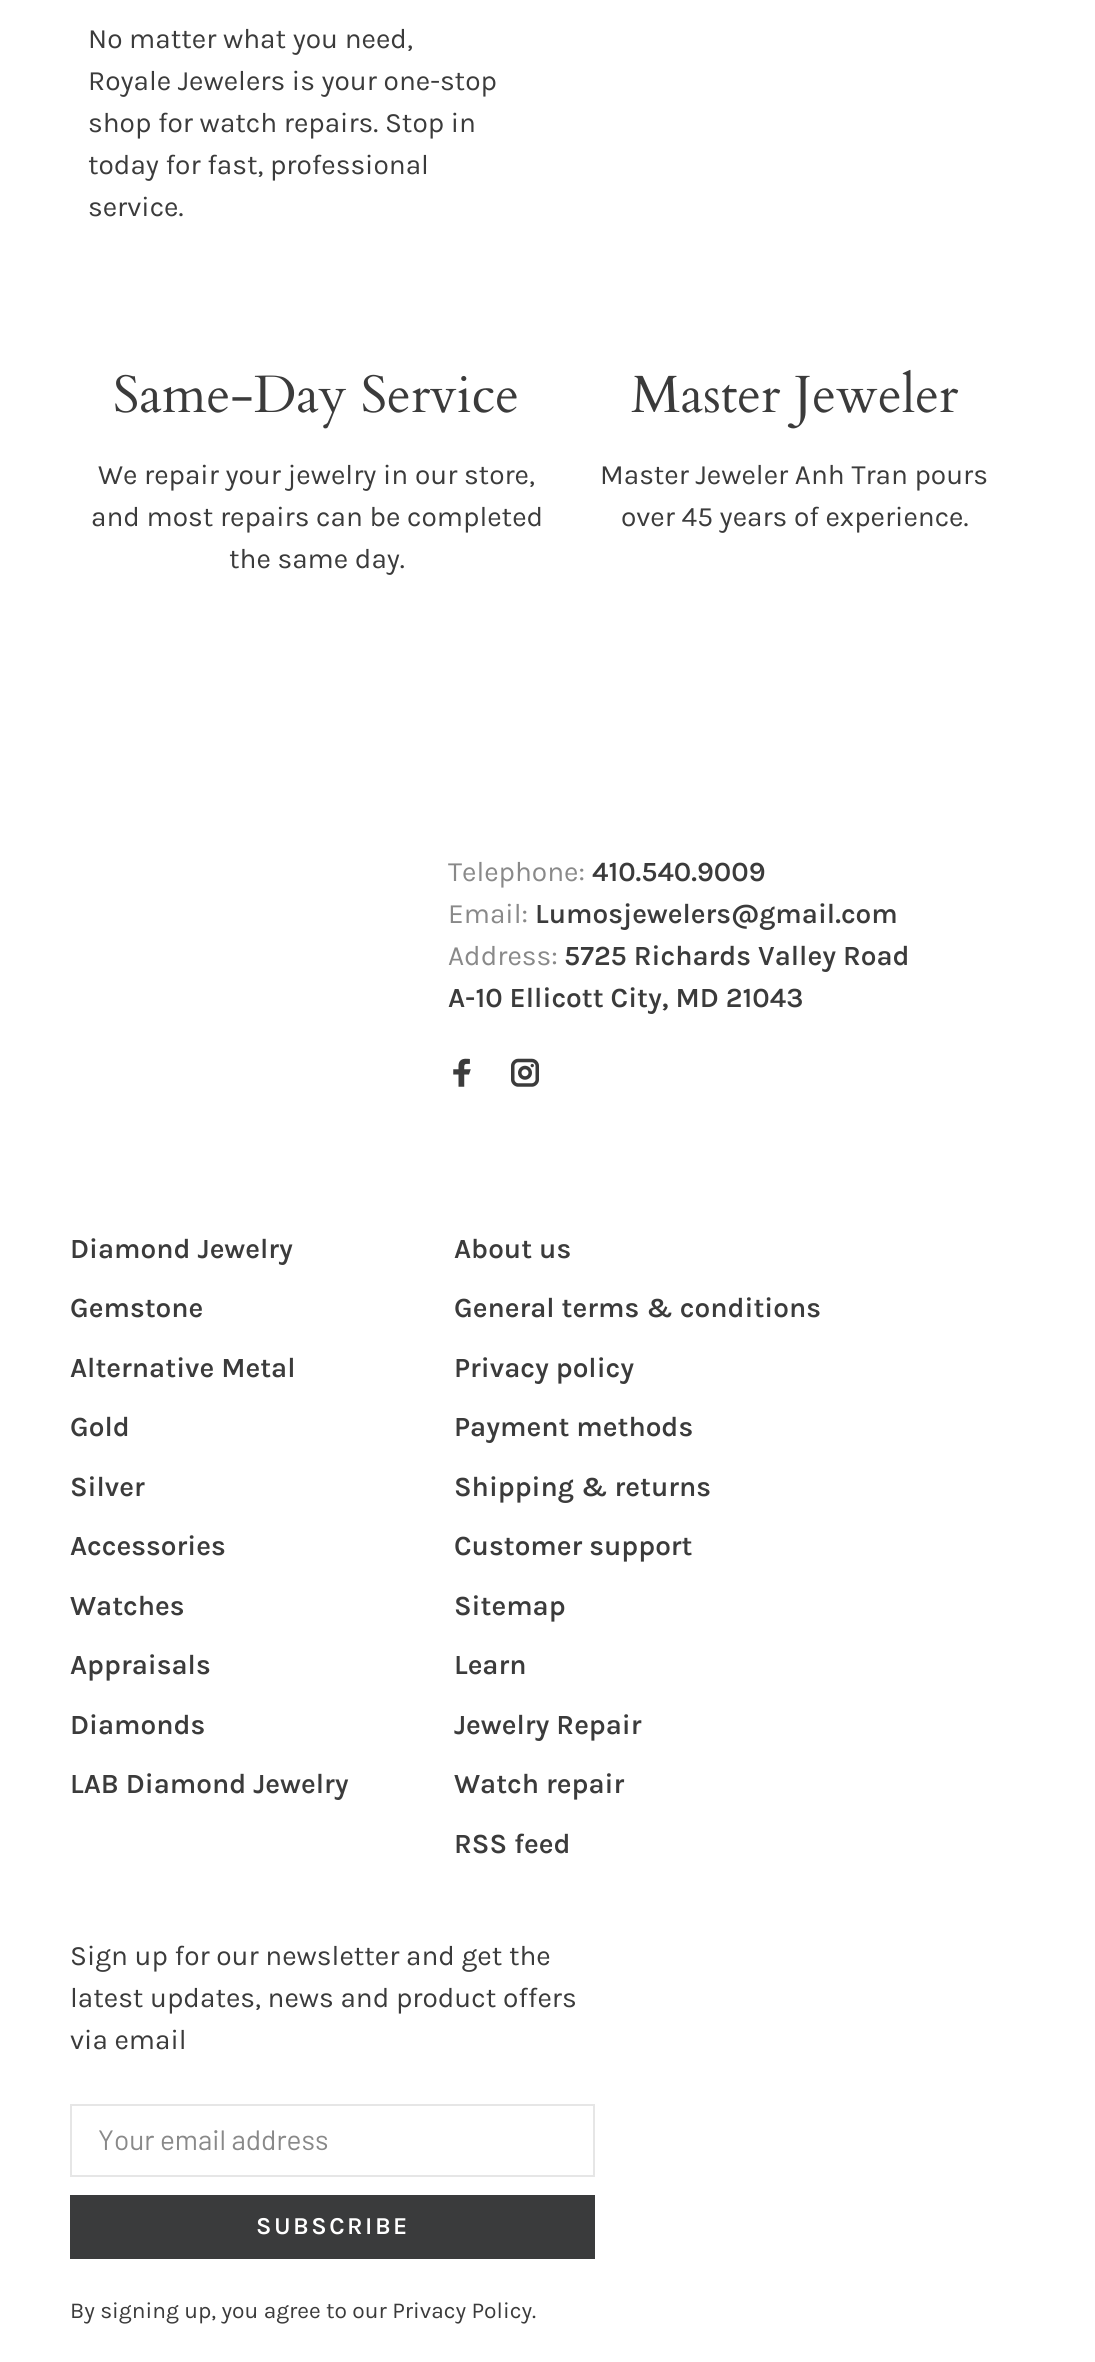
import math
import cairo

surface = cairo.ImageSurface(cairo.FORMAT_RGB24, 1095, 2362)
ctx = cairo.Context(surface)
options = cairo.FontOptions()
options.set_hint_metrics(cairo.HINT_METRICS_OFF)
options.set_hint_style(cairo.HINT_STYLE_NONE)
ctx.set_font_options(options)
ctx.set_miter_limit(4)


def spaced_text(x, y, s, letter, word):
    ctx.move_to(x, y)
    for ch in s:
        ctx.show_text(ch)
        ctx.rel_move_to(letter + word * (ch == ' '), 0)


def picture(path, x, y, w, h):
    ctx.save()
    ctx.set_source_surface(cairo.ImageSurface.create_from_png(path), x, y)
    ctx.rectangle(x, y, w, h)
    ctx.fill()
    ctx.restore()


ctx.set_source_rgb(1, 1, 1)
ctx.paint()
ctx.select_font_face("Karla")
ctx.set_font_size(28)
ctx.set_source_rgb(0.231, 0.231, 0.231)
ctx.move_to(88, 48)
ctx.show_text("No matter what you need,")
ctx.move_to(88, 90)
ctx.show_text("Royale Jewelers is your one-stop")
ctx.move_to(88, 132)
ctx.show_text("shop for watch repairs. Stop in")
ctx.move_to(88, 174)
ctx.show_text("today for fast, professional")
ctx.move_to(88, 216)
ctx.show_text("service.")
ctx.select_font_face("Cardo")
ctx.set_font_size(52.5)
ctx.move_to(113, 412)
ctx.show_text("Same-Day Service")
ctx.select_font_face("Karla")
ctx.set_font_size(28)
ctx.move_to(98, 484)
ctx.show_text("We repair your jewelry in our store,")
ctx.move_to(91, 526)
ctx.show_text("and most repairs can be completed")
ctx.move_to(229, 568)
ctx.show_text("the same day.")
ctx.select_font_face("Cardo")
ctx.set_font_size(52.5)
ctx.move_to(631, 412)
ctx.show_text("Master Jeweler")
ctx.select_font_face("Karla")
ctx.set_font_size(28)
ctx.move_to(600, 484)
ctx.show_text("Master Jeweler Anh Tran pours")
ctx.move_to(621, 526)
ctx.show_text("over 45 years of experience.")
ctx.set_source_rgb(0.537, 0.537, 0.537)
ctx.move_to(448, 881)
ctx.show_text("Telephone:")
ctx.select_font_face("Karla SemiBold")
ctx.set_source_rgb(0.231, 0.231, 0.231)
ctx.move_to(592, 881)
ctx.show_text("410.540.9009")
ctx.select_font_face("Karla")
ctx.set_source_rgb(0.537, 0.537, 0.537)
ctx.move_to(448, 923)
ctx.show_text("Email:")
ctx.select_font_face("Karla SemiBold")
ctx.set_source_rgb(0.231, 0.231, 0.231)
ctx.move_to(535, 923)
ctx.show_text("Lumosjewelers@gmail.com")
ctx.select_font_face("Karla")
ctx.set_source_rgb(0.537, 0.537, 0.537)
ctx.move_to(448, 965)
ctx.show_text("Address:")
ctx.select_font_face("Karla SemiBold")
ctx.set_source_rgb(0.231, 0.231, 0.231)
ctx.move_to(564, 965)
ctx.show_text("5725 Richards Valley Road")
ctx.move_to(448, 1007)
ctx.show_text("A-10 Ellicott City, MD 21043")
picture("img1.png", 453, 1058, 18, 29)
picture("img2.png", 511, 1058, 28, 29)
ctx.move_to(70, 1258)
ctx.show_text("Diamond Jewelry")
ctx.move_to(70, 1317)
ctx.show_text("Gemstone")
ctx.move_to(70, 1377)
ctx.show_text("Alternative Metal")
ctx.move_to(70, 1436)
ctx.show_text("Gold")
ctx.move_to(70, 1496)
ctx.show_text("Silver")
ctx.move_to(70, 1555)
ctx.show_text("Accessories")
ctx.move_to(70, 1615)
ctx.show_text("Watches")
ctx.move_to(70, 1674)
ctx.show_text("Appraisals")
ctx.move_to(70, 1734)
ctx.show_text("Diamonds")
ctx.move_to(70, 1793)
ctx.show_text("LAB Diamond Jewelry")
ctx.move_to(454, 1258)
ctx.show_text("About us")
ctx.move_to(454, 1317)
ctx.show_text("General terms & conditions")
ctx.move_to(454, 1377)
ctx.show_text("Privacy policy")
ctx.move_to(454, 1436)
ctx.show_text("Payment methods")
ctx.move_to(454, 1496)
ctx.show_text("Shipping & returns")
ctx.move_to(454, 1555)
ctx.show_text("Customer support")
ctx.move_to(454, 1615)
ctx.show_text("Sitemap")
ctx.move_to(454, 1674)
ctx.show_text("Learn")
ctx.move_to(454, 1734)
ctx.show_text("Jewelry Repair")
ctx.move_to(454, 1793)
ctx.show_text("Watch repair")
ctx.move_to(454, 1853)
ctx.show_text("RSS feed")
ctx.select_font_face("Karla")
ctx.move_to(70, 1965)
ctx.show_text("Sign up for our newsletter and get the")
ctx.move_to(70, 2007)
ctx.show_text("latest updates, news and product offers")
ctx.move_to(70, 2049)
ctx.show_text("via email")
ctx.rectangle(71, 2105, 523, 71)
ctx.set_source_rgb(0.902, 0.902, 0.902)
ctx.stroke()
ctx.select_font_face("Barlow")
ctx.set_source_rgb(0.537, 0.537, 0.537)
ctx.move_to(98, 2150)
ctx.show_text("Your email address")
ctx.set_source_rgb(0.227, 0.231, 0.235)
ctx.rectangle(70, 2195, 525, 64)
ctx.fill()
ctx.select_font_face("Karla SemiBold")
ctx.set_font_size(24.5)
ctx.set_source_rgb(1, 1, 1)
spaced_text(256, 2234, "SUBSCRIBE", 2.5, 0)
ctx.select_font_face("Karla")
ctx.set_font_size(22.75)
ctx.set_source_rgb(0.231, 0.231, 0.231)
ctx.move_to(70, 2318)
ctx.show_text("By signing up, you agree to our Privacy Policy.")
surface.write_to_png("page.png")
